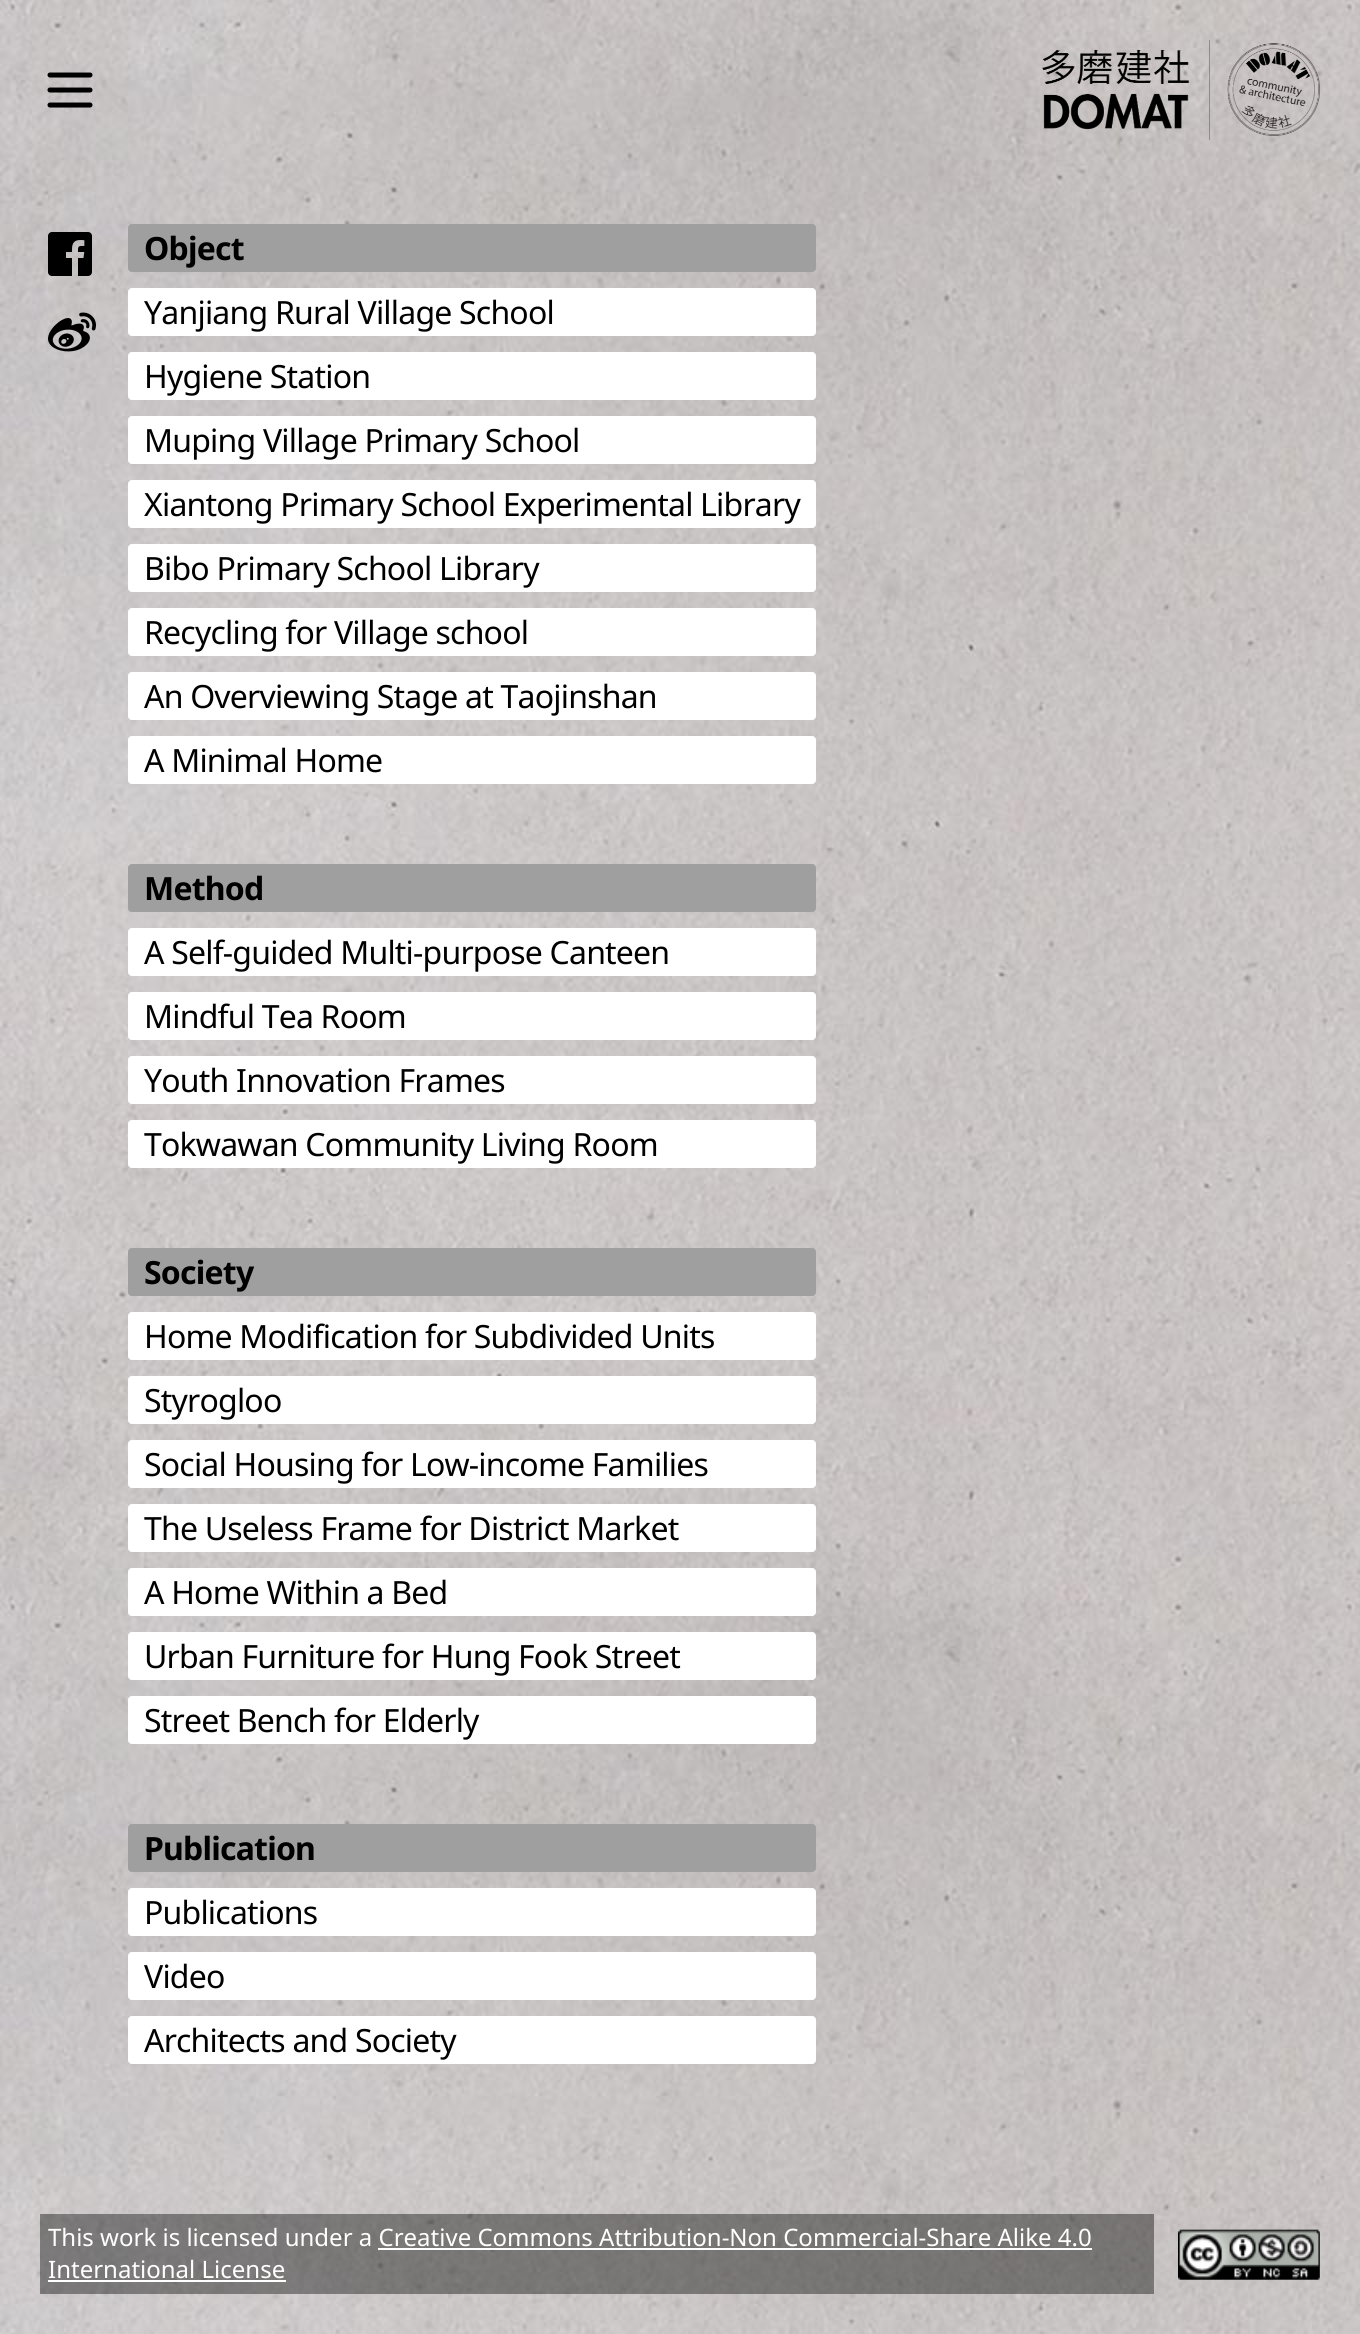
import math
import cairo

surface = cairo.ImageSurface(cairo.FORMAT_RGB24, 1360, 2334)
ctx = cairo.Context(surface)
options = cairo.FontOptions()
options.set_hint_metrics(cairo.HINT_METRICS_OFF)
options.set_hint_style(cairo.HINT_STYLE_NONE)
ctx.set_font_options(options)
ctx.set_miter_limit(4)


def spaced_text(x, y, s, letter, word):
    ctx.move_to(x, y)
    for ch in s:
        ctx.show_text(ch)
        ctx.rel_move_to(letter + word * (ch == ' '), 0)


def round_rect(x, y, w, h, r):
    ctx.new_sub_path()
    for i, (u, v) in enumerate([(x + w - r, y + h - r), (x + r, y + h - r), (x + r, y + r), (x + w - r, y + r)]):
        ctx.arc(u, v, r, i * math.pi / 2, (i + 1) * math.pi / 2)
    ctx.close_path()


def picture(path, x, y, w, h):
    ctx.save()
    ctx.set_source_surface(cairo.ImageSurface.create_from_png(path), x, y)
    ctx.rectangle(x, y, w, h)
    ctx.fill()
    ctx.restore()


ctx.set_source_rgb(1, 1, 1)
ctx.paint()
picture("img1.png", 0, 0, 1360, 2334)
ctx.new_path()
ctx.move_to(50, 105)
ctx.line_to(90, 105)
ctx.move_to(50, 90)
ctx.line_to(90, 90)
ctx.move_to(50, 75)
ctx.line_to(90, 75)
ctx.set_source_rgb(0, 0, 0)
ctx.set_line_width(5)
ctx.set_line_cap(cairo.LINE_CAP_ROUND)
ctx.stroke()
picture("img2.png", 1042, 40, 278, 100)
picture("img3.png", 48, 232, 44, 44)
picture("img4.png", 48, 312, 48, 40)
ctx.set_source_rgb(0.624, 0.624, 0.624)
round_rect(128, 224, 688, 48, 4)
ctx.fill()
ctx.select_font_face("Noto Sans", cairo.FONT_SLANT_NORMAL, cairo.FONT_WEIGHT_BOLD)
ctx.set_font_size(32)
ctx.set_source_rgb(0, 0, 0)
spaced_text(144, 260, "Object", -0.8, 0)
ctx.set_source_rgb(1, 1, 1)
round_rect(128, 288, 688, 48, 4)
ctx.fill()
ctx.select_font_face("Noto Sans")
ctx.set_source_rgb(0, 0, 0)
spaced_text(144, 324, "Yanjiang Rural Village School", -0.8, 0)
ctx.set_source_rgb(1, 1, 1)
round_rect(128, 352, 688, 48, 4)
ctx.fill()
ctx.set_source_rgb(0, 0, 0)
spaced_text(144, 388, "Hygiene Station", -0.8, 0)
ctx.set_source_rgb(1, 1, 1)
round_rect(128, 416, 688, 48, 4)
ctx.fill()
ctx.set_source_rgb(0, 0, 0)
spaced_text(144, 452, "Muping Village Primary School", -0.8, 0)
ctx.set_source_rgb(1, 1, 1)
round_rect(128, 480, 688, 48, 4)
ctx.fill()
ctx.set_source_rgb(0, 0, 0)
spaced_text(144, 516, "Xiantong Primary School Experimental Library", -0.8, 0)
ctx.set_source_rgb(1, 1, 1)
round_rect(128, 544, 688, 48, 4)
ctx.fill()
ctx.set_source_rgb(0, 0, 0)
spaced_text(144, 580, "Bibo Primary School Library", -0.8, 0)
ctx.set_source_rgb(1, 1, 1)
round_rect(128, 608, 688, 48, 4)
ctx.fill()
ctx.set_source_rgb(0, 0, 0)
spaced_text(144, 644, "Recycling for Village school", -0.8, 0)
ctx.set_source_rgb(1, 1, 1)
round_rect(128, 672, 688, 48, 4)
ctx.fill()
ctx.set_source_rgb(0, 0, 0)
spaced_text(144, 708, "An Overviewing Stage at Taojinshan", -0.8, 0)
ctx.set_source_rgb(1, 1, 1)
round_rect(128, 736, 688, 48, 4)
ctx.fill()
ctx.set_source_rgb(0, 0, 0)
spaced_text(144, 772, "A Minimal Home", -0.8, 0)
ctx.set_source_rgb(0.624, 0.624, 0.624)
round_rect(128, 864, 688, 48, 4)
ctx.fill()
ctx.select_font_face("Noto Sans", cairo.FONT_SLANT_NORMAL, cairo.FONT_WEIGHT_BOLD)
ctx.set_source_rgb(0, 0, 0)
spaced_text(144, 900, "Method", -0.8, 0)
ctx.set_source_rgb(1, 1, 1)
round_rect(128, 928, 688, 48, 4)
ctx.fill()
ctx.select_font_face("Noto Sans")
ctx.set_source_rgb(0, 0, 0)
spaced_text(144, 964, "A Self-guided Multi-purpose Canteen", -0.8, 0)
ctx.set_source_rgb(1, 1, 1)
round_rect(128, 992, 688, 48, 4)
ctx.fill()
ctx.set_source_rgb(0, 0, 0)
spaced_text(144, 1028, "Mindful Tea Room", -0.8, 0)
ctx.set_source_rgb(1, 1, 1)
round_rect(128, 1056, 688, 48, 4)
ctx.fill()
ctx.set_source_rgb(0, 0, 0)
spaced_text(144, 1092, "Youth Innovation Frames", -0.8, 0)
ctx.set_source_rgb(1, 1, 1)
round_rect(128, 1120, 688, 48, 4)
ctx.fill()
ctx.set_source_rgb(0, 0, 0)
spaced_text(144, 1156, "Tokwawan Community Living Room", -0.8, 0)
ctx.set_source_rgb(0.624, 0.624, 0.624)
round_rect(128, 1248, 688, 48, 4)
ctx.fill()
ctx.select_font_face("Noto Sans", cairo.FONT_SLANT_NORMAL, cairo.FONT_WEIGHT_BOLD)
ctx.set_source_rgb(0, 0, 0)
spaced_text(144, 1284, "Society", -0.8, 0)
ctx.set_source_rgb(1, 1, 1)
round_rect(128, 1312, 688, 48, 4)
ctx.fill()
ctx.select_font_face("Noto Sans")
ctx.set_source_rgb(0, 0, 0)
spaced_text(144, 1348, "Home Modification for Subdivided Units", -0.8, 0)
ctx.set_source_rgb(1, 1, 1)
round_rect(128, 1376, 688, 48, 4)
ctx.fill()
ctx.set_source_rgb(0, 0, 0)
spaced_text(144, 1412, "Styrogloo", -0.8, 0)
ctx.set_source_rgb(1, 1, 1)
round_rect(128, 1440, 688, 48, 4)
ctx.fill()
ctx.set_source_rgb(0, 0, 0)
spaced_text(144, 1476, "Social Housing for Low-income Families", -0.8, 0)
ctx.set_source_rgb(1, 1, 1)
round_rect(128, 1504, 688, 48, 4)
ctx.fill()
ctx.set_source_rgb(0, 0, 0)
spaced_text(144, 1540, "The Useless Frame for District Market", -0.8, 0)
ctx.set_source_rgb(1, 1, 1)
round_rect(128, 1568, 688, 48, 4)
ctx.fill()
ctx.set_source_rgb(0, 0, 0)
spaced_text(144, 1604, "A Home Within a Bed", -0.8, 0)
ctx.set_source_rgb(1, 1, 1)
round_rect(128, 1632, 688, 48, 4)
ctx.fill()
ctx.set_source_rgb(0, 0, 0)
spaced_text(144, 1668, "Urban Furniture for Hung Fook Street", -0.8, 0)
ctx.set_source_rgb(1, 1, 1)
round_rect(128, 1696, 688, 48, 4)
ctx.fill()
ctx.set_source_rgb(0, 0, 0)
spaced_text(144, 1732, "Street Bench for Elderly", -0.8, 0)
ctx.set_source_rgb(0.624, 0.624, 0.624)
round_rect(128, 1824, 688, 48, 4)
ctx.fill()
ctx.select_font_face("Noto Sans", cairo.FONT_SLANT_NORMAL, cairo.FONT_WEIGHT_BOLD)
ctx.set_source_rgb(0, 0, 0)
spaced_text(144, 1860, "Publication", -0.8, 0)
ctx.set_source_rgb(1, 1, 1)
round_rect(128, 1888, 688, 48, 4)
ctx.fill()
ctx.select_font_face("Noto Sans")
ctx.set_source_rgb(0, 0, 0)
spaced_text(144, 1924, "Publications", -0.8, 0)
ctx.set_source_rgb(1, 1, 1)
round_rect(128, 1952, 688, 48, 4)
ctx.fill()
ctx.set_source_rgb(0, 0, 0)
spaced_text(144, 1988, "Video", -0.8, 0)
ctx.set_source_rgb(1, 1, 1)
round_rect(128, 2016, 688, 48, 4)
ctx.fill()
ctx.set_source_rgb(0, 0, 0)
spaced_text(144, 2052, "Architects and Society", -0.8, 0)
ctx.set_source_rgba(0, 0, 0, 0.4)
ctx.rectangle(40, 2214, 1114, 80)
ctx.fill()
ctx.set_font_size(24)
ctx.set_source_rgb(1, 1, 1)
ctx.move_to(48, 2246)
ctx.show_text("This work is licensed under a Creative Commons Attribution-Non Commercial-Share Alike 4.0")
ctx.move_to(48, 2278)
ctx.show_text("International License")
ctx.rectangle(378, 2248, 714, 2)
ctx.fill()
ctx.rectangle(48, 2280, 238, 2)
ctx.fill()
picture("img5.png", 1178, 2229, 142, 51)
surface.write_to_png("page.png")
